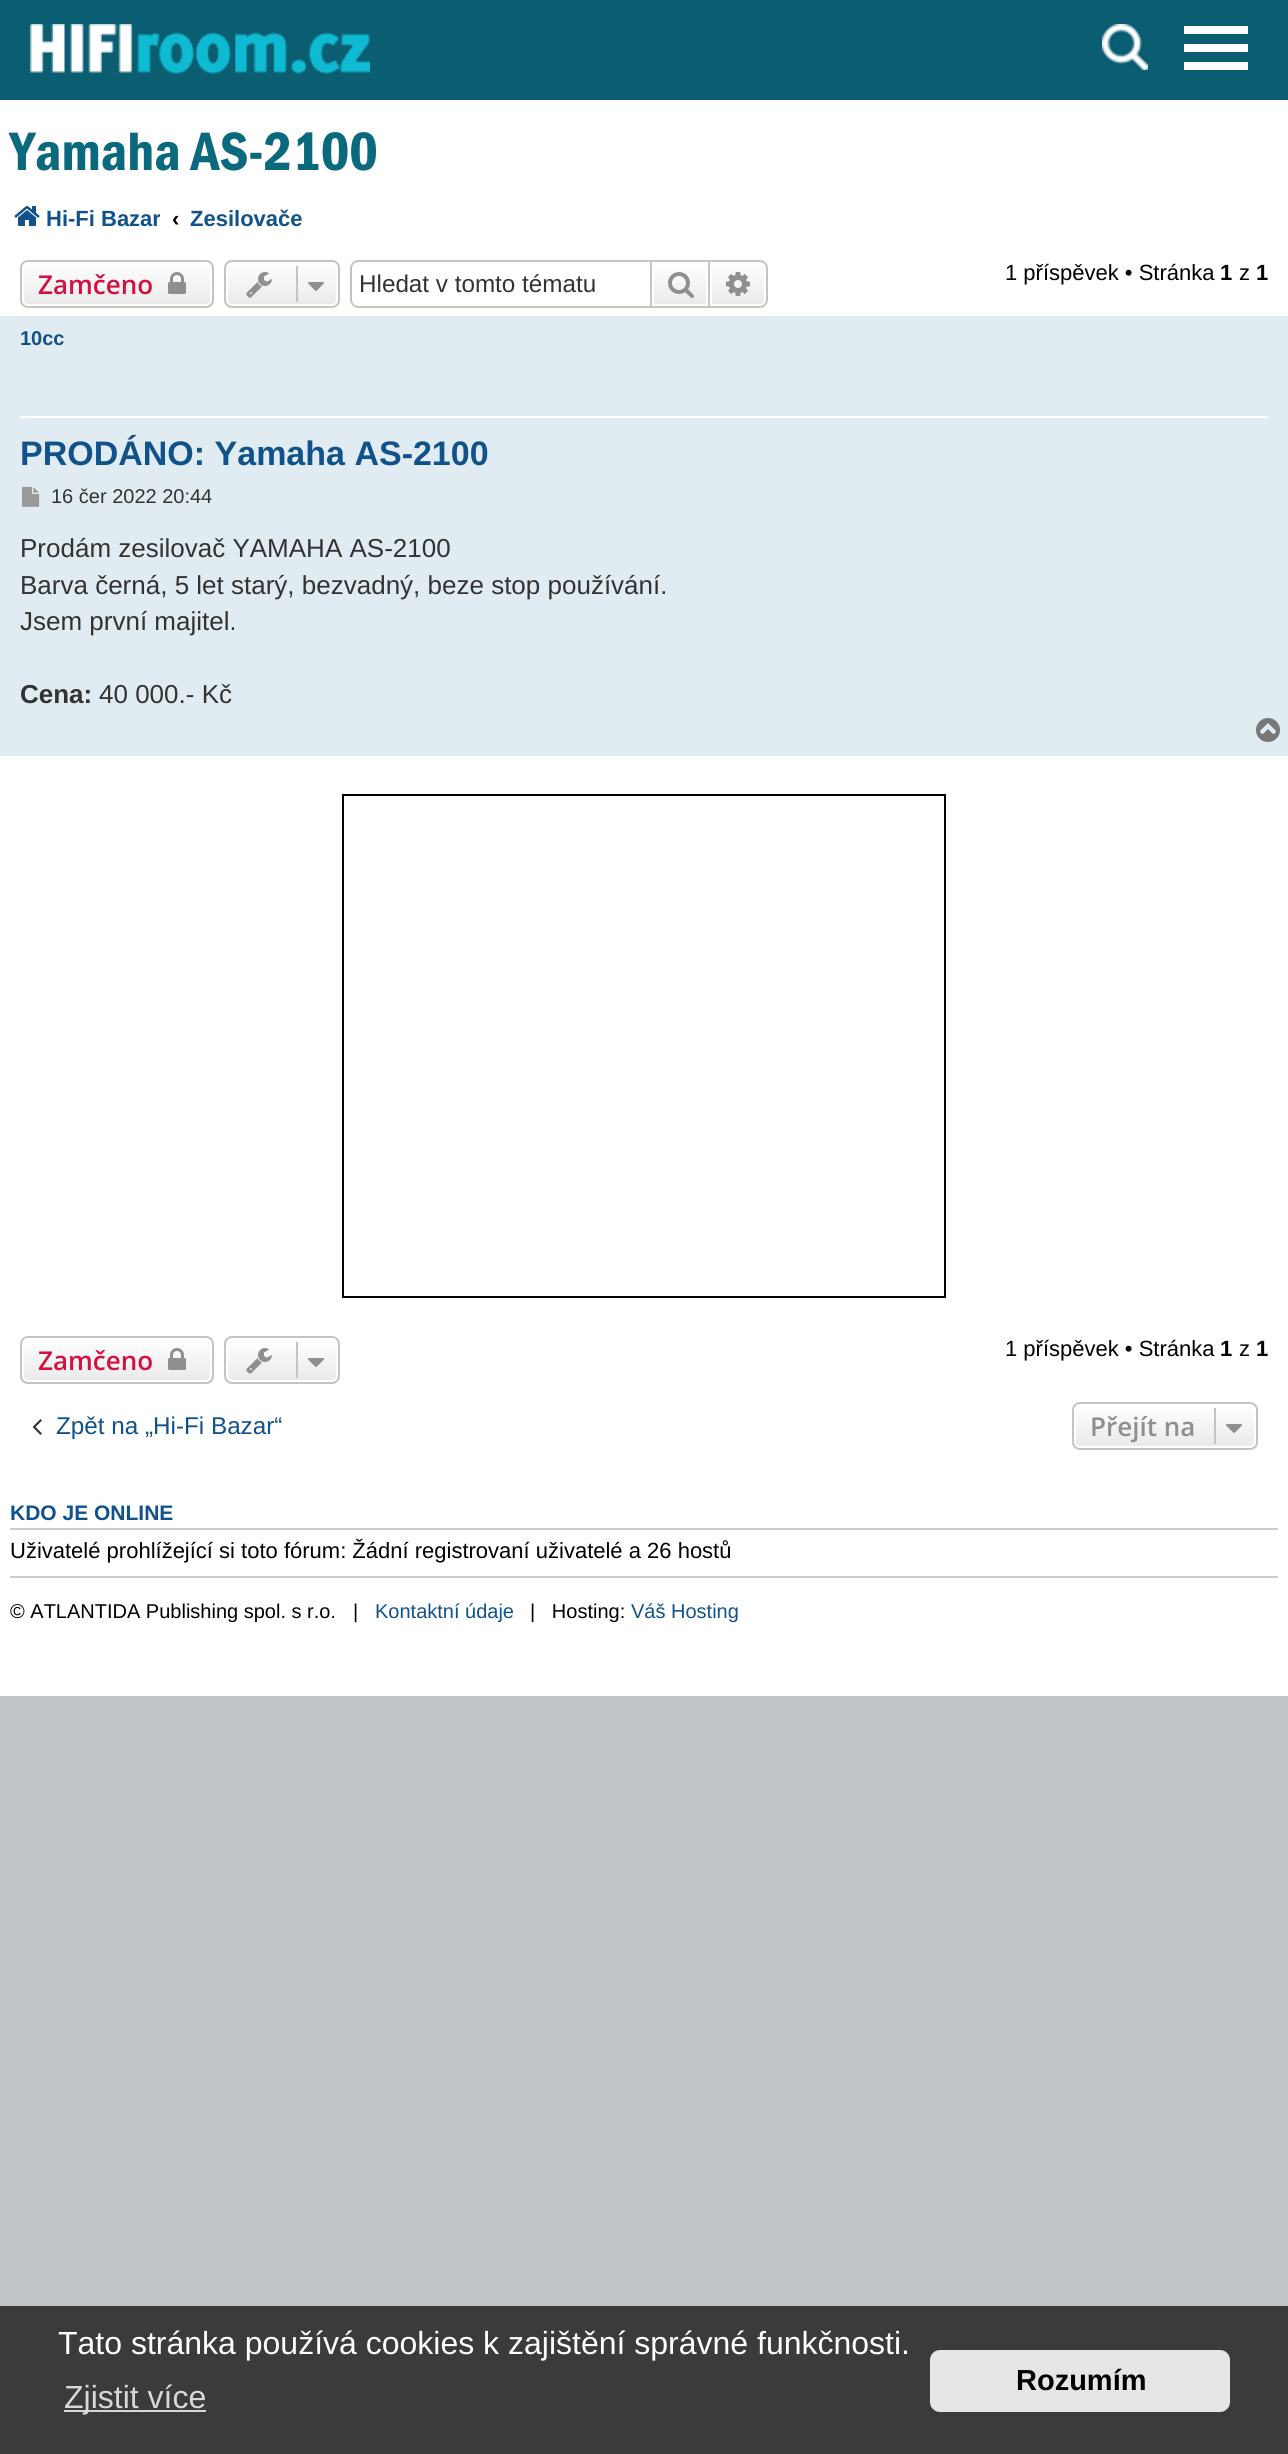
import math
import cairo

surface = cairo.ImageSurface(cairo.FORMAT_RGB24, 1288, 2454)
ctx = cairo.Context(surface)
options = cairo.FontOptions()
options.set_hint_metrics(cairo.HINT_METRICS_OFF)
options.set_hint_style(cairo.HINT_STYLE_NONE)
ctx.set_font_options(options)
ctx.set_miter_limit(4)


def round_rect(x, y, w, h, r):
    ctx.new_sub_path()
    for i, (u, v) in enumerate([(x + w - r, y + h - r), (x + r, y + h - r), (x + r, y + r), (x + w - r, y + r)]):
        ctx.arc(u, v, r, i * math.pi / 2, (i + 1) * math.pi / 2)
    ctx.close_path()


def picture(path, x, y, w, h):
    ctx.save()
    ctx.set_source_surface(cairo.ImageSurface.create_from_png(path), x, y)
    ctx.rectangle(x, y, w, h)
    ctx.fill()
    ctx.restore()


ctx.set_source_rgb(0.753, 0.769, 0.78)
ctx.paint()
ctx.set_source_rgb(0.043, 0.369, 0.443)
ctx.rectangle(0, 0, 1288, 100)
ctx.fill()
picture("img1.png", 30, 24, 340, 50)
picture("img2.png", 1102, 24, 46, 46)
ctx.set_source_rgb(1, 1, 1)
ctx.rectangle(1184, 26, 64, 8)
ctx.fill()
ctx.rectangle(1184, 44, 64, 8)
ctx.fill()
ctx.rectangle(1184, 62, 64, 8)
ctx.fill()
ctx.rectangle(0, 100, 1288, 1596)
ctx.fill()
ctx.select_font_face("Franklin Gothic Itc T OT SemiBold")
ctx.set_font_size(56)
ctx.set_source_rgb(0.043, 0.412, 0.49)
ctx.move_to(10, 170)
ctx.show_text("Yamaha AS-2100")
picture("img3.png", 14, 206, 26, 20)
ctx.save()
ctx.rectangle(10, 194, 150, 48)
ctx.clip()
ctx.select_font_face("Liberation Sans", cairo.FONT_SLANT_NORMAL, cairo.FONT_WEIGHT_BOLD)
ctx.set_font_size(22)
ctx.set_source_rgb(0.063, 0.322, 0.537)
ctx.move_to(46, 226)
ctx.show_text("Hi-Fi Bazar")
ctx.restore()
ctx.select_font_face("Liberation Sans", cairo.FONT_SLANT_NORMAL, cairo.FONT_WEIGHT_BOLD)
ctx.set_font_size(22)
ctx.set_source_rgb(0, 0, 0)
ctx.move_to(172, 226)
ctx.show_text("‹")
ctx.set_source_rgb(0.063, 0.322, 0.537)
ctx.move_to(190, 226)
ctx.show_text("Zesilovače")
ctx.save()
round_rect(20, 260, 194, 48, 8)
ctx.clip()
gradient = cairo.LinearGradient(117, 262, 117, 306)
gradient.add_color_stop_rgba(0, 1, 1, 1, 1)
gradient.add_color_stop_rgba(1, 0.914, 0.914, 0.914, 1)
ctx.set_source(gradient)
ctx.rectangle(20, 262, 194, 44)
ctx.fill()
ctx.restore()
round_rect(23, 263, 188, 42, 5)
ctx.set_source_rgb(1, 1, 1)
ctx.stroke()
round_rect(21, 261, 192, 46, 7)
ctx.set_source_rgb(0.78, 0.765, 0.749)
ctx.stroke()
ctx.select_font_face("Open Sans SemiBold")
ctx.set_font_size(26)
ctx.set_source_rgb(0.827, 0.067, 0.255)
ctx.move_to(38, 294)
ctx.show_text("Zamčeno")
picture("img4.png", 168, 272, 18, 22)
ctx.save()
round_rect(224, 260, 116, 48, 8)
ctx.clip()
gradient = cairo.LinearGradient(282, 262, 282, 306)
gradient.add_color_stop_rgba(0, 1, 1, 1, 1)
gradient.add_color_stop_rgba(1, 0.914, 0.914, 0.914, 1)
ctx.set_source(gradient)
ctx.rectangle(224, 262, 116, 44)
ctx.fill()
ctx.restore()
round_rect(227, 263, 110, 42, 5)
ctx.set_source_rgb(1, 1, 1)
ctx.stroke()
round_rect(225, 261, 114, 46, 7)
ctx.set_source_rgb(0.78, 0.765, 0.749)
ctx.stroke()
picture("img5.png", 246, 272, 26, 26)
ctx.rectangle(296, 266, 2, 36)
ctx.fill()
picture("img6.png", 308, 282, 16, 9)
ctx.set_fill_rule(cairo.FILL_RULE_EVEN_ODD)
ctx.new_path()
ctx.move_to(358, 260)
ctx.line_to(650, 260)
ctx.line_to(650, 308)
ctx.line_to(358, 308)
ctx.curve_to(354, 308, 350, 304, 350, 300)
ctx.line_to(350, 268)
ctx.curve_to(350, 264, 354, 260, 358, 260)
ctx.close_path()
ctx.move_to(358, 262)
ctx.line_to(650, 262)
ctx.line_to(650, 306)
ctx.line_to(358, 306)
ctx.curve_to(355, 306, 352, 303, 352, 300)
ctx.line_to(352, 268)
ctx.curve_to(352, 265, 355, 262, 358, 262)
ctx.close_path()
ctx.fill()
ctx.select_font_face("Liberation Sans")
ctx.set_font_size(24.25)
ctx.set_source_rgb(0.2, 0.2, 0.2)
ctx.move_to(359, 292)
ctx.show_text("Hledat v tomto tématu")
gradient = cairo.LinearGradient(680, 262, 680, 306)
gradient.add_color_stop_rgba(0, 1, 1, 1, 1)
gradient.add_color_stop_rgba(1, 0.914, 0.914, 0.914, 1)
ctx.set_source(gradient)
ctx.rectangle(654, 267, 52, 37)
ctx.fill()
ctx.rectangle(651, 261, 58, 46)
ctx.set_source_rgb(0.78, 0.765, 0.749)
ctx.stroke()
picture("img7.png", 668, 272, 26, 26)
gradient = cairo.LinearGradient(738, 262, 738, 306)
gradient.add_color_stop_rgba(0, 1, 1, 1, 1)
gradient.add_color_stop_rgba(1, 0.914, 0.914, 0.914, 1)
ctx.set_source(gradient)
ctx.new_path()
ctx.move_to(711, 263)
ctx.line_to(760, 263)
ctx.curve_to(763, 263, 765, 265, 765, 268)
ctx.line_to(765, 300)
ctx.curve_to(765, 303, 763, 305, 760, 305)
ctx.line_to(711, 305)
ctx.close_path()
ctx.fill_preserve()
ctx.set_source_rgb(1, 1, 1)
ctx.stroke()
ctx.set_source_rgb(0.78, 0.765, 0.749)
ctx.new_path()
ctx.move_to(710, 260)
ctx.line_to(760, 260)
ctx.curve_to(764, 260, 768, 264, 768, 268)
ctx.line_to(768, 300)
ctx.curve_to(768, 304, 764, 308, 760, 308)
ctx.line_to(710, 308)
ctx.close_path()
ctx.move_to(710, 262)
ctx.line_to(760, 262)
ctx.curve_to(763, 262, 766, 265, 766, 268)
ctx.line_to(766, 300)
ctx.curve_to(766, 303, 763, 306, 760, 306)
ctx.line_to(710, 306)
ctx.close_path()
ctx.fill()
picture("img8.png", 726, 272, 24, 24)
ctx.set_font_size(22)
ctx.set_source_rgb(0, 0, 0)
ctx.move_to(1005, 280)
ctx.show_text("1 příspěvek • Stránka")
ctx.select_font_face("Liberation Sans", cairo.FONT_SLANT_NORMAL, cairo.FONT_WEIGHT_BOLD)
ctx.move_to(1220, 280)
ctx.show_text("1")
ctx.select_font_face("Liberation Sans")
ctx.move_to(1239, 280)
ctx.show_text("z")
ctx.select_font_face("Liberation Sans", cairo.FONT_SLANT_NORMAL, cairo.FONT_WEIGHT_BOLD)
ctx.move_to(1256, 280)
ctx.show_text("1")
ctx.set_source_rgb(0.882, 0.922, 0.949)
ctx.rectangle(0, 316, 1288, 440)
ctx.fill()
ctx.set_source_rgb(1, 1, 1)
ctx.rectangle(20, 416, 1248, 2)
ctx.fill()
ctx.set_font_size(20)
ctx.set_source_rgb(0.063, 0.322, 0.537)
ctx.move_to(20, 345)
ctx.show_text("10cc")
ctx.set_font_size(34)
ctx.move_to(20, 465)
ctx.show_text("PRODÁNO: Yamaha AS-2100")
picture("img9.png", 22, 486, 18, 21)
ctx.select_font_face("Liberation Sans")
ctx.set_font_size(20)
ctx.set_source_rgb(0.2, 0.2, 0.2)
ctx.move_to(51, 503)
ctx.show_text("16 čer 2022 20:44")
ctx.set_font_size(26)
ctx.move_to(20, 557)
ctx.show_text("Prodám zesilovač YAMAHA AS-2100")
ctx.move_to(20, 594)
ctx.show_text("Barva černá, 5 let starý, bezvadný, beze stop používání.")
ctx.move_to(20, 630)
ctx.show_text("Jsem první majitel.")
ctx.select_font_face("Liberation Sans", cairo.FONT_SLANT_NORMAL, cairo.FONT_WEIGHT_BOLD)
ctx.move_to(20, 703)
ctx.show_text("Cena:")
ctx.select_font_face("Liberation Sans")
ctx.move_to(99, 703)
ctx.show_text("40 000.- Kč")
picture("img10.png", 1256, 718, 24, 24)
ctx.rectangle(343, 795, 602, 502)
ctx.set_source_rgb(0, 0, 0)
ctx.stroke()
ctx.save()
ctx.set_fill_rule(cairo.FILL_RULE_WINDING)
round_rect(20, 1336, 194, 48, 8)
ctx.clip()
gradient = cairo.LinearGradient(117, 1338, 117, 1382)
gradient.add_color_stop_rgba(0, 1, 1, 1, 1)
gradient.add_color_stop_rgba(1, 0.914, 0.914, 0.914, 1)
ctx.set_source(gradient)
ctx.rectangle(20, 1338, 194, 44)
ctx.fill()
ctx.restore()
round_rect(23, 1339, 188, 42, 5)
ctx.set_source_rgb(1, 1, 1)
ctx.stroke()
round_rect(21, 1337, 192, 46, 7)
ctx.set_source_rgb(0.78, 0.765, 0.749)
ctx.stroke()
ctx.select_font_face("Open Sans SemiBold")
ctx.set_source_rgb(0.827, 0.067, 0.255)
ctx.move_to(38, 1370)
ctx.show_text("Zamčeno")
picture("img4.png", 168, 1348, 18, 22)
ctx.save()
ctx.set_fill_rule(cairo.FILL_RULE_WINDING)
round_rect(224, 1336, 116, 48, 8)
ctx.clip()
gradient = cairo.LinearGradient(282, 1338, 282, 1382)
gradient.add_color_stop_rgba(0, 1, 1, 1, 1)
gradient.add_color_stop_rgba(1, 0.914, 0.914, 0.914, 1)
ctx.set_source(gradient)
ctx.rectangle(224, 1338, 116, 44)
ctx.fill()
ctx.restore()
round_rect(227, 1339, 110, 42, 5)
ctx.set_source_rgb(1, 1, 1)
ctx.stroke()
round_rect(225, 1337, 114, 46, 7)
ctx.set_source_rgb(0.78, 0.765, 0.749)
ctx.stroke()
picture("img5.png", 246, 1348, 26, 26)
ctx.rectangle(296, 1342, 2, 36)
ctx.fill()
picture("img6.png", 308, 1358, 16, 9)
ctx.select_font_face("Liberation Sans")
ctx.set_font_size(22)
ctx.set_source_rgb(0, 0, 0)
ctx.move_to(1005, 1356)
ctx.show_text("1 příspěvek • Stránka")
ctx.select_font_face("Liberation Sans", cairo.FONT_SLANT_NORMAL, cairo.FONT_WEIGHT_BOLD)
ctx.move_to(1220, 1356)
ctx.show_text("1")
ctx.select_font_face("Liberation Sans")
ctx.move_to(1239, 1356)
ctx.show_text("z")
ctx.select_font_face("Liberation Sans", cairo.FONT_SLANT_NORMAL, cairo.FONT_WEIGHT_BOLD)
ctx.move_to(1256, 1356)
ctx.show_text("1")
picture("img11.png", 32, 1419, 10, 16)
ctx.select_font_face("Liberation Sans")
ctx.set_font_size(24.25)
ctx.set_source_rgb(0.063, 0.322, 0.537)
ctx.move_to(56, 1434)
ctx.show_text("Zpět na „Hi-Fi Bazar“")
ctx.save()
ctx.set_fill_rule(cairo.FILL_RULE_WINDING)
round_rect(1072, 1402, 186, 48, 8)
ctx.clip()
gradient = cairo.LinearGradient(1165, 1404, 1165, 1448)
gradient.add_color_stop_rgba(0, 1, 1, 1, 1)
gradient.add_color_stop_rgba(1, 0.914, 0.914, 0.914, 1)
ctx.set_source(gradient)
ctx.rectangle(1072, 1404, 186, 44)
ctx.fill()
ctx.restore()
round_rect(1075, 1405, 180, 42, 5)
ctx.set_source_rgb(1, 1, 1)
ctx.stroke()
round_rect(1073, 1403, 184, 46, 7)
ctx.set_source_rgb(0.78, 0.765, 0.749)
ctx.stroke()
ctx.select_font_face("Open Sans SemiBold")
ctx.set_font_size(26)
ctx.set_source_rgb(0.561, 0.561, 0.561)
ctx.move_to(1090, 1436)
ctx.show_text("Přejít na")
ctx.set_source_rgb(0.78, 0.765, 0.749)
ctx.rectangle(1214, 1408, 2, 36)
ctx.fill()
picture("img6.png", 1226, 1424, 16, 9)
ctx.set_source_rgb(0.8, 0.8, 0.8)
ctx.rectangle(10, 1528, 1268, 2)
ctx.fill()
ctx.select_font_face("Liberation Sans", cairo.FONT_SLANT_NORMAL, cairo.FONT_WEIGHT_BOLD)
ctx.set_font_size(21)
ctx.set_source_rgb(0.063, 0.322, 0.537)
ctx.move_to(10, 1520)
ctx.show_text("KDO JE ONLINE")
ctx.select_font_face("Liberation Sans")
ctx.set_font_size(22)
ctx.set_source_rgb(0, 0, 0)
ctx.move_to(10, 1558)
ctx.show_text("Uživatelé prohlížející si toto fórum: Žádní registrovaní uživatelé a 26 hostů")
ctx.set_source_rgb(0.8, 0.8, 0.8)
ctx.rectangle(10, 1576, 1268, 2)
ctx.fill()
ctx.save()
ctx.set_fill_rule(cairo.FILL_RULE_WINDING)
ctx.rectangle(10, 1600, 1268, 22)
ctx.clip()
ctx.set_font_size(20)
ctx.set_source_rgb(0, 0, 0)
ctx.move_to(10, 1618)
ctx.show_text("© ATLANTIDA Publishing spol. s r.o.")
ctx.restore()
ctx.set_font_size(20)
ctx.set_source_rgb(0, 0, 0)
ctx.move_to(353, 1618)
ctx.show_text("|")
ctx.set_source_rgb(0.063, 0.322, 0.537)
ctx.move_to(375, 1618)
ctx.show_text("Kontaktní údaje")
ctx.save()
ctx.set_fill_rule(cairo.FILL_RULE_WINDING)
ctx.rectangle(10, 1600, 1268, 22)
ctx.clip()
ctx.set_source_rgb(0, 0, 0)
ctx.move_to(530, 1618)
ctx.show_text("|   Hosting:")
ctx.restore()
ctx.move_to(631, 1618)
ctx.show_text("Váš Hosting")
ctx.set_source_rgb(0.227, 0.231, 0.235)
ctx.rectangle(0, 2306, 1288, 148)
ctx.fill()
ctx.set_font_size(32)
ctx.set_source_rgb(1, 1, 1)
ctx.move_to(58, 2354)
ctx.show_text("Tato stránka používá cookies k zajištění správné funkčnosti.")
ctx.set_source_rgb(0.847, 0.847, 0.847)
ctx.rectangle(64, 2410, 142, 2)
ctx.fill()
ctx.move_to(64, 2408)
ctx.show_text("Zjistit více")
ctx.set_source_rgb(0.898, 0.898, 0.898)
round_rect(930, 2350, 300, 62, 10)
ctx.fill()
ctx.select_font_face("Liberation Sans", cairo.FONT_SLANT_NORMAL, cairo.FONT_WEIGHT_BOLD)
ctx.set_font_size(29)
ctx.set_source_rgb(0, 0, 0)
ctx.move_to(1016, 2390)
ctx.show_text("Rozumím")
surface.write_to_png("page.png")
